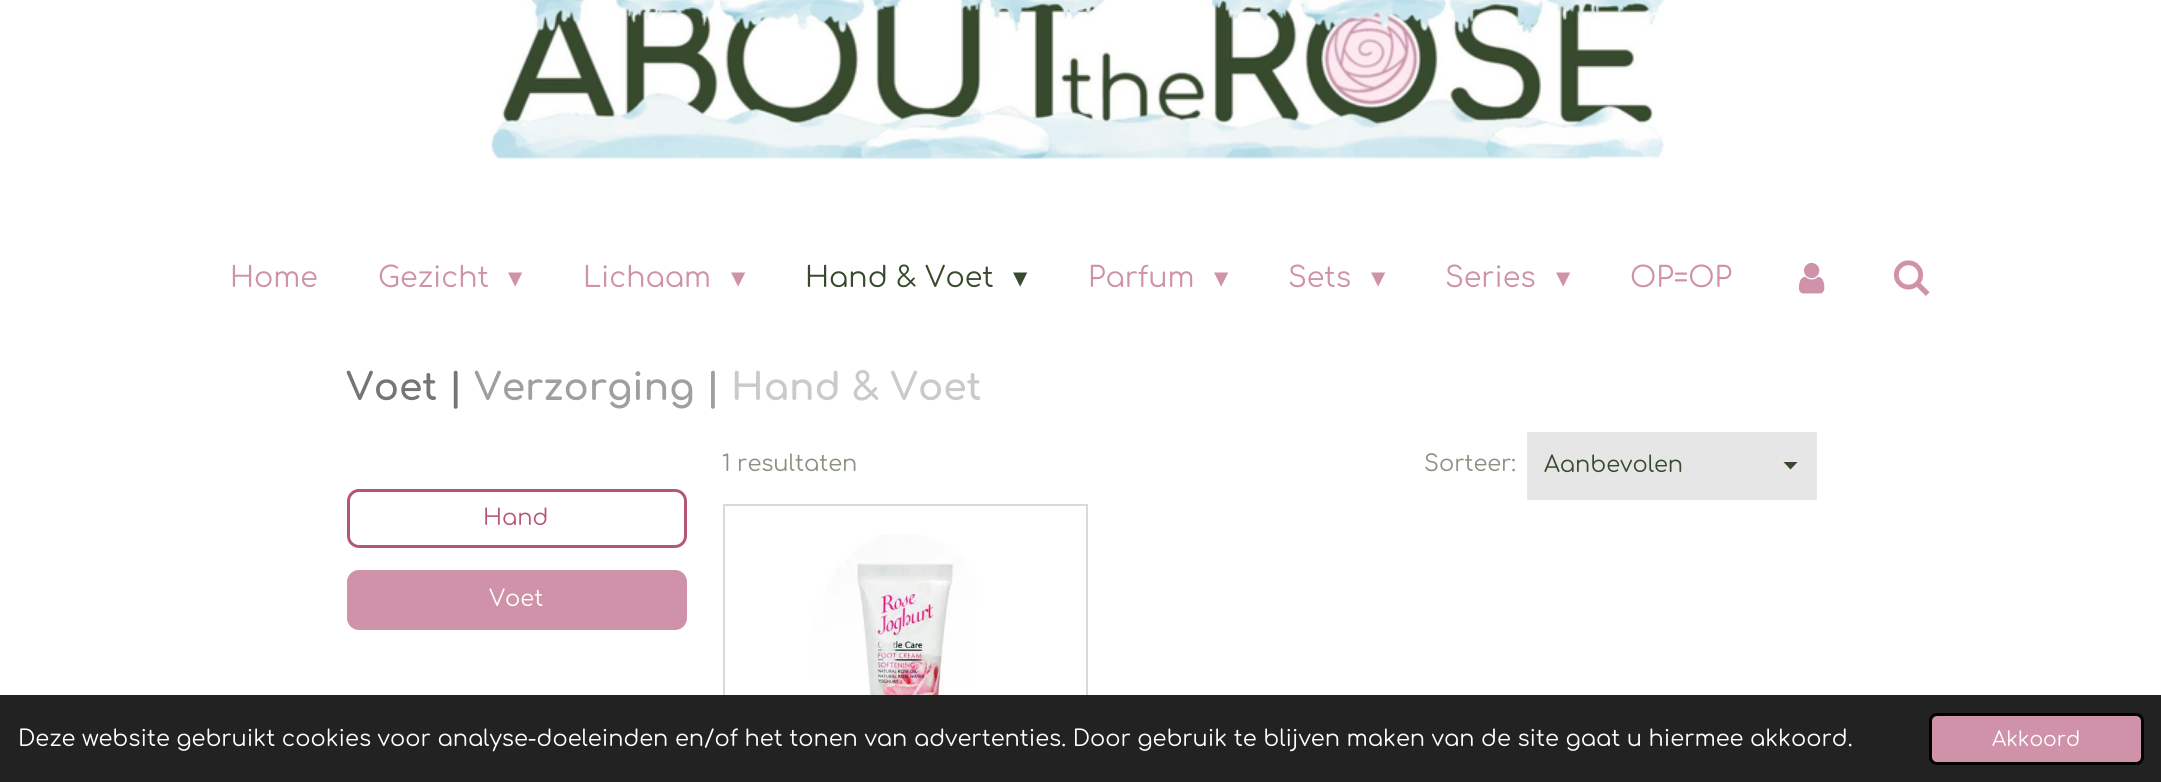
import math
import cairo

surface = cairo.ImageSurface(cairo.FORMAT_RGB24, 2161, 782)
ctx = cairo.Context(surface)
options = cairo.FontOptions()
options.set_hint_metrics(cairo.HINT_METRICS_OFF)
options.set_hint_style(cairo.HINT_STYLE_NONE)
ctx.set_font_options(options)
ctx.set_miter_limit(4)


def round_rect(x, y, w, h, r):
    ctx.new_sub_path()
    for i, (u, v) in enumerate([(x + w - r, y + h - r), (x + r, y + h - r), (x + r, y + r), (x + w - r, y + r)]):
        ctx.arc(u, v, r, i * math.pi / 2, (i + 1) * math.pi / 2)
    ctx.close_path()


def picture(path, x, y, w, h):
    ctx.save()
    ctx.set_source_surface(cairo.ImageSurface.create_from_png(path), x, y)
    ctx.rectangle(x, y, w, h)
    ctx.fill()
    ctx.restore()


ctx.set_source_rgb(1, 1, 1)
ctx.paint()
picture("img1.png", 490, 0, 1174, 159)
ctx.select_font_face("Comfortaa")
ctx.set_font_size(28.5)
ctx.set_source_rgb(0.812, 0.573, 0.659)
ctx.move_to(230, 287)
ctx.show_text("Home")
ctx.move_to(378, 287)
ctx.show_text("Gezicht")
ctx.select_font_face("DejaVu Sans")
ctx.move_to(508, 287)
ctx.show_text("▾")
ctx.select_font_face("Comfortaa")
ctx.move_to(583, 287)
ctx.show_text("Lichaam")
ctx.select_font_face("DejaVu Sans")
ctx.move_to(731, 287)
ctx.show_text("▾")
ctx.select_font_face("Comfortaa")
ctx.set_source_rgb(0.22, 0.29, 0.176)
ctx.move_to(805, 287)
ctx.show_text("Hand & Voet")
ctx.select_font_face("DejaVu Sans")
ctx.move_to(1013, 287)
ctx.show_text("▾")
ctx.select_font_face("Comfortaa")
ctx.set_source_rgb(0.812, 0.573, 0.659)
ctx.move_to(1088, 287)
ctx.show_text("Parfum")
ctx.select_font_face("DejaVu Sans")
ctx.move_to(1214, 287)
ctx.show_text("▾")
ctx.select_font_face("Comfortaa")
ctx.move_to(1288, 287)
ctx.show_text("Sets")
ctx.select_font_face("DejaVu Sans")
ctx.move_to(1371, 287)
ctx.show_text("▾")
ctx.select_font_face("Comfortaa")
ctx.move_to(1445, 287)
ctx.show_text("Series")
ctx.select_font_face("DejaVu Sans")
ctx.move_to(1556, 287)
ctx.show_text("▾")
ctx.select_font_face("Comfortaa")
ctx.move_to(1630, 287)
ctx.show_text("OP=OP")
picture("img2.png", 1798, 262, 27, 32)
picture("img3.png", 1894, 260, 36, 36)
ctx.select_font_face("Comfortaa", cairo.FONT_SLANT_NORMAL, cairo.FONT_WEIGHT_BOLD)
ctx.set_font_size(37.5)
ctx.set_source_rgb(0.459, 0.459, 0.459)
ctx.move_to(346, 400)
ctx.show_text("Voet |")
ctx.set_source_rgb(0.624, 0.624, 0.624)
ctx.move_to(474, 400)
ctx.show_text("Verzorging |")
ctx.set_source_rgb(0.792, 0.792, 0.792)
ctx.move_to(731, 400)
ctx.show_text("Hand & Voet")
ctx.select_font_face("Comfortaa")
ctx.set_font_size(22.5)
ctx.set_source_rgb(0.533, 0.573, 0.506)
ctx.move_to(722, 471)
ctx.show_text("1 resultaten")
ctx.move_to(1424, 471)
ctx.show_text("Sorteer:")
ctx.set_source_rgb(0.902, 0.902, 0.902)
ctx.rectangle(1527, 432, 290, 68)
ctx.fill()
ctx.set_source_rgb(0.22, 0.29, 0.176)
ctx.new_path()
ctx.move_to(1790.5, 469.5)
ctx.line_to(1783.5, 462)
ctx.line_to(1797.5, 462)
ctx.close_path()
ctx.fill()
ctx.move_to(1544, 472)
ctx.show_text("Aanbevolen")
ctx.rectangle(724, 505, 363, 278)
ctx.set_source_rgb(0.843, 0.859, 0.835)
ctx.stroke()
picture("img4.png", 813, 535, 164, 160)
round_rect(348.5, 490.5, 337, 56, 10.5)
ctx.set_source_rgb(0.706, 0.337, 0.471)
ctx.set_line_width(3)
ctx.stroke()
ctx.move_to(483, 525)
ctx.show_text("Hand")
ctx.set_source_rgb(0.812, 0.573, 0.659)
round_rect(347, 570, 340, 60, 12)
ctx.fill()
ctx.set_source_rgb(1, 1, 1)
ctx.move_to(489, 606)
ctx.show_text("Voet")
ctx.set_source_rgb(0.133, 0.133, 0.133)
ctx.rectangle(0, 695, 2161, 87)
ctx.fill()
ctx.set_source_rgb(1, 1, 1)
ctx.move_to(18, 746)
ctx.show_text("Deze website gebruikt cookies voor analyse-doeleinden en/of het tonen van advertenties. Door gebruik te blijven maken van de site gaat u hiermee akkoord.")
ctx.set_source_rgb(0.812, 0.573, 0.659)
round_rect(1930.5, 714.5, 212, 49, 6.5)
ctx.fill_preserve()
ctx.set_source_rgb(0, 0, 0)
ctx.stroke()
ctx.set_font_size(20.25)
ctx.set_source_rgb(1, 1, 1)
ctx.move_to(1992, 746)
ctx.show_text("Akkoord")
surface.write_to_png("page.png")
